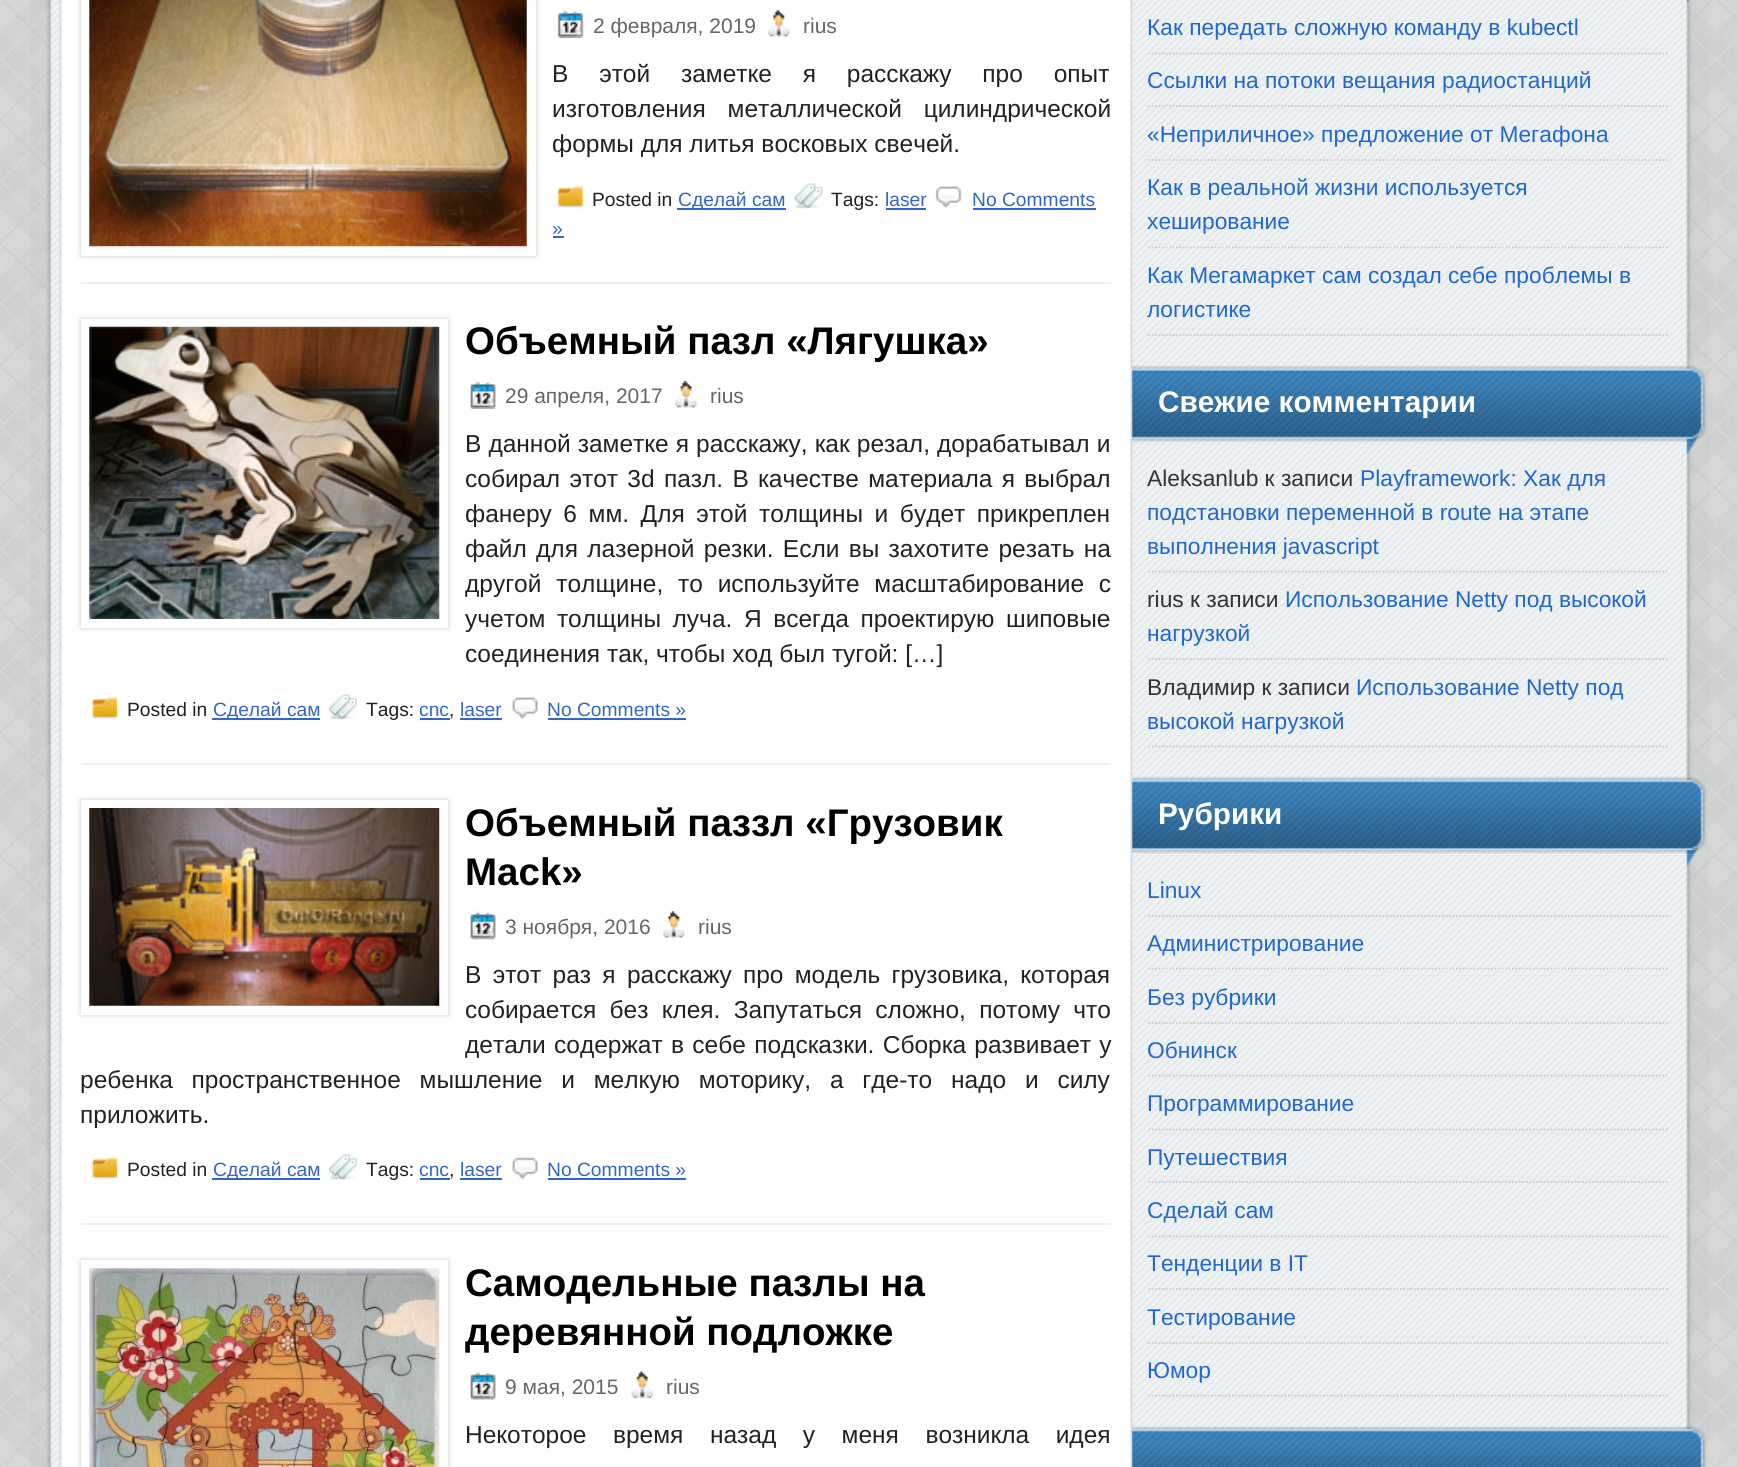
import math
import cairo

surface = cairo.ImageSurface(cairo.FORMAT_RGB24, 1737, 1467)
ctx = cairo.Context(surface)
options = cairo.FontOptions()
options.set_hint_metrics(cairo.HINT_METRICS_OFF)
options.set_hint_style(cairo.HINT_STYLE_NONE)
ctx.set_font_options(options)
ctx.set_miter_limit(4)


def spaced_text(x, y, s, letter, word):
    ctx.move_to(x, y)
    for ch in s:
        ctx.show_text(ch)
        ctx.rel_move_to(letter + word * (ch == ' '), 0)


def round_rect(x, y, w, h, r):
    ctx.new_sub_path()
    for i, (u, v) in enumerate([(x + w - r, y + h - r), (x + r, y + h - r), (x + r, y + r), (x + w - r, y + r)]):
        ctx.arc(u, v, r, i * math.pi / 2, (i + 1) * math.pi / 2)
    ctx.close_path()


def shadow(x, y, w, h, r, blur, alpha):
    ctx.push_group_with_content(cairo.CONTENT_ALPHA)
    ctx.set_operator(cairo.OPERATOR_SOURCE)
    for i in range(15, -16, -2):
        e = blur * i / 6
        if min(w, h) + 2 * e > 0:
            ctx.set_source_rgba(0, 0, 0, alpha * math.erfc((i - 1) / 8.5) / 2)
            round_rect(x - e, y - e, w + 2 * e, h + 2 * e, max(0, min(r + e + blur * .6, min(w, h) / 2 + e)))
            ctx.fill()
    ctx.mask(ctx.pop_group())


def picture(path, x, y, w, h):
    ctx.save()
    ctx.set_source_surface(cairo.ImageSurface.create_from_png(path), x, y)
    ctx.rectangle(x, y, w, h)
    ctx.fill()
    ctx.restore()


ctx.set_source_rgb(1, 1, 1)
ctx.paint()
picture("img1.png", 0, 0, 1737, 1467)
picture("img2.png", 30, 0, 1679, 1467)
ctx.set_source_rgb(0.933, 0.933, 0.933)
ctx.rectangle(81, 282, 1030, 2)
ctx.fill()
ctx.set_source_rgb(0.8, 0.8, 0.8)
shadow(81, -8, 455, 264, 0, 2.5, 1)
ctx.set_source_rgb(1, 1, 1)
ctx.rectangle(81, 0, 455, 256)
ctx.fill()
picture("img3.png", 89, 0, 438, 247)
picture("img4.png", 557, 10, 27, 28)
ctx.select_font_face("Liberation Sans")
ctx.set_font_size(21)
ctx.set_source_rgb(0.4, 0.4, 0.4)
ctx.move_to(593, 33)
ctx.show_text("2 февраля, 2019")
picture("img5.png", 768, 10, 22, 27)
ctx.move_to(803, 33)
ctx.show_text("rius")
ctx.set_font_size(24.5)
ctx.set_source_rgb(0.133, 0.133, 0.133)
spaced_text(552, 82, "В этой заметке я расскажу про опыт", 0, 24)
spaced_text(552, 117, "изготовления металлической цилиндрической", 0, 15)
ctx.move_to(552, 152)
ctx.show_text("формы для литья восковых свечей.")
picture("img6.png", 556, 185, 29, 23)
ctx.set_font_size(19.25)
ctx.move_to(592, 206)
ctx.show_text("Posted in")
ctx.set_source_rgb(0.2, 0.4, 0.8)
ctx.rectangle(677, 208, 109, 2)
ctx.fill()
ctx.move_to(678, 206)
ctx.show_text("Сделай сам")
picture("img7.png", 794, 183, 29, 26)
ctx.set_source_rgb(0.133, 0.133, 0.133)
ctx.move_to(831, 206)
ctx.show_text("Tags:")
ctx.set_source_rgb(0.2, 0.4, 0.8)
ctx.move_to(885, 206)
ctx.show_text("laser")
ctx.rectangle(886, 208, 40, 2)
ctx.fill()
picture("img8.png", 935, 186, 27, 23)
ctx.move_to(972, 206)
ctx.show_text("No Comments")
ctx.rectangle(973, 208, 123, 2)
ctx.fill()
ctx.move_to(552, 235)
ctx.show_text("»")
ctx.rectangle(553, 236, 11, 2)
ctx.fill()
ctx.set_source_rgb(0.933, 0.933, 0.933)
ctx.rectangle(81, 763, 1030, 2)
ctx.fill()
ctx.save()
ctx.set_fill_rule(cairo.FILL_RULE_EVEN_ODD)
ctx.new_path()
ctx.move_to(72, 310)
ctx.line_to(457, 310)
ctx.line_to(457, 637)
ctx.line_to(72, 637)
ctx.close_path()
ctx.move_to(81, 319)
ctx.line_to(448, 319)
ctx.line_to(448, 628)
ctx.line_to(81, 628)
ctx.close_path()
ctx.clip()
ctx.set_source_rgb(0.8, 0.8, 0.8)
shadow(81, 319, 367, 309, 0, 2.5, 1)
ctx.restore()
picture("img9.png", 89, 326, 351, 293)
ctx.select_font_face("Liberation Sans", cairo.FONT_SLANT_NORMAL, cairo.FONT_WEIGHT_BOLD)
ctx.set_font_size(38.5)
ctx.set_source_rgb(0, 0, 0)
ctx.move_to(465, 354)
ctx.show_text("Объемный пазл «Лягушка»")
picture("img10.png", 470, 381, 26, 28)
ctx.select_font_face("Liberation Sans")
ctx.set_font_size(21)
ctx.set_source_rgb(0.4, 0.4, 0.4)
ctx.move_to(505, 403)
ctx.show_text("29 апреля, 2017")
picture("img11.png", 675, 381, 22, 27)
ctx.move_to(710, 403)
ctx.show_text("rius")
ctx.set_font_size(24.5)
ctx.set_source_rgb(0.133, 0.133, 0.133)
spaced_text(465, 452, "В данной заметке я расскажу, как резал, дорабатывал и", 0, 0.25)
spaced_text(465, 487, "собирал этот 3d пазл. В качестве материала я выбрал", 0, 2.5)
spaced_text(465, 522, "фанеру 6 мм. Для этой толщины и будет прикреплен", 0, 4.75)
spaced_text(465, 557, "файл для лазерной резки. Если вы захотите резать на", 0, 2.5)
spaced_text(465, 592, "другой толщине, то используйте масштабирование с", 0, 8)
spaced_text(465, 627, "учетом толщины луча. Я всегда проектирую шиповые", 0, 4.75)
ctx.move_to(465, 662)
ctx.show_text("соединения так, чтобы ход был тугой: […]")
picture("img12.png", 91, 696, 28, 23)
ctx.set_font_size(19.25)
ctx.move_to(127, 716)
ctx.show_text("Posted in")
ctx.set_source_rgb(0.2, 0.4, 0.8)
ctx.rectangle(212, 718, 108, 2)
ctx.fill()
ctx.move_to(213, 716)
ctx.show_text("Сделай сам")
picture("img13.png", 329, 694, 28, 26)
ctx.set_source_rgb(0.133, 0.133, 0.133)
ctx.move_to(366, 716)
ctx.show_text("Tags:")
ctx.set_source_rgb(0.2, 0.4, 0.8)
ctx.move_to(419, 716)
ctx.show_text("cnc")
ctx.rectangle(420, 718, 30, 2)
ctx.fill()
ctx.set_source_rgb(0.133, 0.133, 0.133)
ctx.move_to(449, 716)
ctx.show_text(",")
ctx.set_source_rgb(0.2, 0.4, 0.8)
ctx.move_to(460, 716)
ctx.show_text("laser")
ctx.rectangle(460, 718, 42, 2)
ctx.fill()
picture("img14.png", 512, 697, 26, 23)
ctx.move_to(547, 716)
ctx.show_text("No Comments »")
ctx.rectangle(548, 718, 138, 2)
ctx.fill()
ctx.set_source_rgb(0.933, 0.933, 0.933)
ctx.rectangle(81, 1223, 1030, 2)
ctx.fill()
ctx.save()
ctx.set_fill_rule(cairo.FILL_RULE_EVEN_ODD)
ctx.new_path()
ctx.move_to(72, 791)
ctx.line_to(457, 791)
ctx.line_to(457, 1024)
ctx.line_to(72, 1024)
ctx.close_path()
ctx.move_to(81, 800)
ctx.line_to(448, 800)
ctx.line_to(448, 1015)
ctx.line_to(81, 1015)
ctx.close_path()
ctx.clip()
ctx.set_source_rgb(0.8, 0.8, 0.8)
shadow(81, 800, 367, 215, 0, 2.5, 1)
ctx.restore()
picture("img15.png", 89, 808, 351, 198)
ctx.select_font_face("Liberation Sans", cairo.FONT_SLANT_NORMAL, cairo.FONT_WEIGHT_BOLD)
ctx.set_font_size(38.5)
ctx.set_source_rgb(0, 0, 0)
ctx.move_to(465, 836)
ctx.show_text("Объемный паззл «Грузовик")
ctx.move_to(465, 885)
ctx.show_text("Mack»")
picture("img16.png", 470, 911, 26, 29)
ctx.select_font_face("Liberation Sans")
ctx.set_font_size(21)
ctx.set_source_rgb(0.4, 0.4, 0.4)
ctx.move_to(505, 934)
ctx.show_text("3 ноября, 2016")
picture("img17.png", 663, 911, 22, 27)
ctx.move_to(698, 934)
ctx.show_text("rius")
ctx.set_font_size(24.5)
ctx.set_source_rgb(0.133, 0.133, 0.133)
spaced_text(465, 983, "В этот раз я расскажу про модель грузовика, которая", 0, 4.5)
spaced_text(465, 1018, "собирается без клея. Запутаться сложно, потому что", 0, 6.5)
spaced_text(465, 1053, "детали содержат в себе подсказки. Сборка развивает у", 0, 1.5)
spaced_text(80, 1088, "ребенка пространственное мышление и мелкую моторику, а где-то надо и силу", 0, 12)
ctx.move_to(80, 1123)
ctx.show_text("приложить.")
picture("img18.png", 91, 1156, 28, 24)
ctx.set_font_size(19.25)
ctx.move_to(127, 1176)
ctx.show_text("Posted in")
ctx.set_source_rgb(0.2, 0.4, 0.8)
ctx.rectangle(212, 1178, 108, 2)
ctx.fill()
ctx.move_to(213, 1176)
ctx.show_text("Сделай сам")
picture("img19.png", 329, 1154, 28, 26)
ctx.set_source_rgb(0.133, 0.133, 0.133)
ctx.move_to(366, 1176)
ctx.show_text("Tags:")
ctx.set_source_rgb(0.2, 0.4, 0.8)
ctx.move_to(419, 1176)
ctx.show_text("cnc")
ctx.rectangle(420, 1178, 30, 2)
ctx.fill()
ctx.set_source_rgb(0.133, 0.133, 0.133)
ctx.move_to(449, 1176)
ctx.show_text(",")
ctx.set_source_rgb(0.2, 0.4, 0.8)
ctx.move_to(460, 1176)
ctx.show_text("laser")
ctx.rectangle(460, 1178, 42, 2)
ctx.fill()
picture("img20.png", 512, 1157, 26, 23)
ctx.move_to(547, 1176)
ctx.show_text("No Comments »")
ctx.rectangle(548, 1178, 138, 2)
ctx.fill()
ctx.save()
ctx.set_fill_rule(cairo.FILL_RULE_EVEN_ODD)
ctx.new_path()
ctx.move_to(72, 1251)
ctx.line_to(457, 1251)
ctx.line_to(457, 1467)
ctx.line_to(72, 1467)
ctx.close_path()
ctx.move_to(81, 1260)
ctx.line_to(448, 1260)
ctx.line_to(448, 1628)
ctx.line_to(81, 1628)
ctx.close_path()
ctx.clip()
ctx.set_source_rgb(0.8, 0.8, 0.8)
shadow(81, 1260, 367, 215, 0, 2.5, 1)
ctx.restore()
picture("img21.png", 89, 1268, 351, 199)
ctx.select_font_face("Liberation Sans", cairo.FONT_SLANT_NORMAL, cairo.FONT_WEIGHT_BOLD)
ctx.set_font_size(38.5)
ctx.set_source_rgb(0, 0, 0)
ctx.move_to(465, 1296)
ctx.show_text("Самодельные пазлы на")
ctx.move_to(465, 1345)
ctx.show_text("деревянной подложке")
picture("img22.png", 470, 1371, 26, 29)
ctx.select_font_face("Liberation Sans")
ctx.set_font_size(21)
ctx.set_source_rgb(0.4, 0.4, 0.4)
ctx.move_to(505, 1394)
ctx.show_text("9 мая, 2015")
picture("img23.png", 631, 1371, 23, 28)
ctx.move_to(666, 1394)
ctx.show_text("rius")
ctx.set_font_size(24.5)
ctx.set_source_rgb(0.133, 0.133, 0.133)
spaced_text(465, 1443, "Некоторое время назад у меня возникла идея", 0, 19.75)
picture("img24.png", 1686, 0, 4, 3)
ctx.new_path()
ctx.move_to(1148, 53.5)
ctx.line_to(1669.5, 53.5)
ctx.set_source_rgb(0.812, 0.812, 0.816)
ctx.set_line_width(1.8)
ctx.set_dash([1.75, 1.75])
ctx.stroke()
ctx.set_font_size(22.75)
ctx.set_source_rgb(0.125, 0.404, 0.824)
ctx.move_to(1147, 35)
ctx.show_text("Как передать сложную команду в kubectl")
ctx.new_path()
ctx.move_to(1148, 106)
ctx.line_to(1669.5, 106)
ctx.set_source_rgb(0.812, 0.812, 0.816)
ctx.stroke()
ctx.set_source_rgb(0.125, 0.404, 0.824)
ctx.move_to(1147, 88)
ctx.show_text("Ссылки на потоки вещания радиостанций")
ctx.new_path()
ctx.move_to(1148, 160)
ctx.line_to(1669.5, 160)
ctx.set_source_rgb(0.812, 0.812, 0.816)
ctx.stroke()
ctx.set_source_rgb(0.125, 0.404, 0.824)
ctx.move_to(1147, 142)
ctx.show_text("«Неприличное» предложение от Мегафона")
ctx.new_path()
ctx.move_to(1148, 247.5)
ctx.line_to(1669.5, 247.5)
ctx.set_source_rgb(0.812, 0.812, 0.816)
ctx.stroke()
ctx.set_source_rgb(0.125, 0.404, 0.824)
ctx.move_to(1147, 195)
ctx.show_text("Как в реальной жизни используется")
ctx.move_to(1147, 229)
ctx.show_text("хеширование")
ctx.new_path()
ctx.move_to(1148, 335)
ctx.line_to(1669.5, 335)
ctx.set_source_rgb(0.812, 0.812, 0.816)
ctx.stroke()
ctx.set_source_rgb(0.125, 0.404, 0.824)
ctx.move_to(1147, 283)
ctx.show_text("Как Мегамаркет сам создал себе проблемы в")
ctx.move_to(1147, 317)
ctx.show_text("логистике")
picture("img25.png", 1132, 365, 574, 90)
ctx.select_font_face("Liberation Sans", cairo.FONT_SLANT_NORMAL, cairo.FONT_WEIGHT_BOLD)
ctx.set_font_size(29.75)
ctx.set_source_rgb(1, 1, 1)
ctx.move_to(1158, 412)
ctx.show_text("Свежие комментарии")
ctx.new_path()
ctx.move_to(1148, 571.5)
ctx.line_to(1669.5, 571.5)
ctx.set_source_rgb(0.812, 0.812, 0.816)
ctx.stroke()
ctx.select_font_face("Liberation Sans")
ctx.set_font_size(22.75)
ctx.set_source_rgb(0.2, 0.2, 0.2)
ctx.move_to(1147, 486)
ctx.show_text("Aleksanlub к записи")
ctx.set_source_rgb(0.125, 0.404, 0.824)
ctx.move_to(1360, 486)
ctx.show_text("Playframework: Хак для")
ctx.move_to(1147, 520)
ctx.show_text("подстановки переменной в route на этапе")
ctx.move_to(1147, 554)
ctx.show_text("выполнения javascript")
ctx.new_path()
ctx.move_to(1148, 659)
ctx.line_to(1669.5, 659)
ctx.set_source_rgb(0.812, 0.812, 0.816)
ctx.stroke()
ctx.set_source_rgb(0.2, 0.2, 0.2)
ctx.move_to(1147, 607)
ctx.show_text("rius к записи")
ctx.set_source_rgb(0.125, 0.404, 0.824)
ctx.move_to(1285, 607)
ctx.show_text("Использование Netty под высокой")
ctx.move_to(1147, 641)
ctx.show_text("нагрузкой")
ctx.new_path()
ctx.move_to(1148, 746.5)
ctx.line_to(1669.5, 746.5)
ctx.set_source_rgb(0.812, 0.812, 0.816)
ctx.stroke()
ctx.set_source_rgb(0.2, 0.2, 0.2)
ctx.move_to(1147, 695)
ctx.show_text("Владимир к записи")
ctx.set_source_rgb(0.125, 0.404, 0.824)
ctx.move_to(1356, 695)
ctx.show_text("Использование Netty под")
ctx.move_to(1147, 729)
ctx.show_text("высокой нагрузкой")
picture("img26.png", 1132, 776, 574, 90)
ctx.select_font_face("Liberation Sans", cairo.FONT_SLANT_NORMAL, cairo.FONT_WEIGHT_BOLD)
ctx.set_font_size(29.75)
ctx.set_source_rgb(1, 1, 1)
ctx.move_to(1158, 824)
ctx.show_text("Рубрики")
ctx.new_path()
ctx.move_to(1148, 916)
ctx.line_to(1669.5, 916)
ctx.set_source_rgb(0.812, 0.812, 0.816)
ctx.stroke()
ctx.select_font_face("Liberation Sans")
ctx.set_font_size(22.75)
ctx.set_source_rgb(0.125, 0.404, 0.824)
ctx.move_to(1147, 898)
ctx.show_text("Linux")
ctx.new_path()
ctx.move_to(1148, 968.5)
ctx.line_to(1669.5, 968.5)
ctx.set_source_rgb(0.812, 0.812, 0.816)
ctx.stroke()
ctx.set_source_rgb(0.125, 0.404, 0.824)
ctx.move_to(1147, 951)
ctx.show_text("Администрирование")
ctx.new_path()
ctx.move_to(1148, 1023)
ctx.line_to(1669.5, 1023)
ctx.set_source_rgb(0.812, 0.812, 0.816)
ctx.stroke()
ctx.set_source_rgb(0.125, 0.404, 0.824)
ctx.move_to(1147, 1005)
ctx.show_text("Без рубрики")
ctx.new_path()
ctx.move_to(1148, 1075.5)
ctx.line_to(1669.5, 1075.5)
ctx.set_source_rgb(0.812, 0.812, 0.816)
ctx.stroke()
ctx.set_source_rgb(0.125, 0.404, 0.824)
ctx.move_to(1147, 1058)
ctx.show_text("Обнинск")
ctx.new_path()
ctx.move_to(1148, 1129.5)
ctx.line_to(1669.5, 1129.5)
ctx.set_source_rgb(0.812, 0.812, 0.816)
ctx.stroke()
ctx.set_source_rgb(0.125, 0.404, 0.824)
ctx.move_to(1147, 1111)
ctx.show_text("Программирование")
ctx.new_path()
ctx.move_to(1148, 1182)
ctx.line_to(1669.5, 1182)
ctx.set_source_rgb(0.812, 0.812, 0.816)
ctx.stroke()
ctx.set_source_rgb(0.125, 0.404, 0.824)
ctx.move_to(1147, 1165)
ctx.show_text("Путешествия")
ctx.new_path()
ctx.move_to(1148, 1236.5)
ctx.line_to(1669.5, 1236.5)
ctx.set_source_rgb(0.812, 0.812, 0.816)
ctx.stroke()
ctx.set_source_rgb(0.125, 0.404, 0.824)
ctx.move_to(1147, 1218)
ctx.show_text("Сделай сам")
ctx.new_path()
ctx.move_to(1148, 1289)
ctx.line_to(1669.5, 1289)
ctx.set_source_rgb(0.812, 0.812, 0.816)
ctx.stroke()
ctx.set_source_rgb(0.125, 0.404, 0.824)
ctx.move_to(1147, 1271)
ctx.show_text("Тенденции в IT")
ctx.new_path()
ctx.move_to(1148, 1343)
ctx.line_to(1669.5, 1343)
ctx.set_source_rgb(0.812, 0.812, 0.816)
ctx.stroke()
ctx.set_source_rgb(0.125, 0.404, 0.824)
ctx.move_to(1147, 1325)
ctx.show_text("Тестирование")
ctx.new_path()
ctx.move_to(1148, 1395.5)
ctx.line_to(1669.5, 1395.5)
ctx.set_source_rgb(0.812, 0.812, 0.816)
ctx.stroke()
ctx.set_source_rgb(0.125, 0.404, 0.824)
ctx.move_to(1147, 1378)
ctx.show_text("Юмор")
picture("img27.png", 1132, 1426, 574, 41)
surface.write_to_png("page.png")
